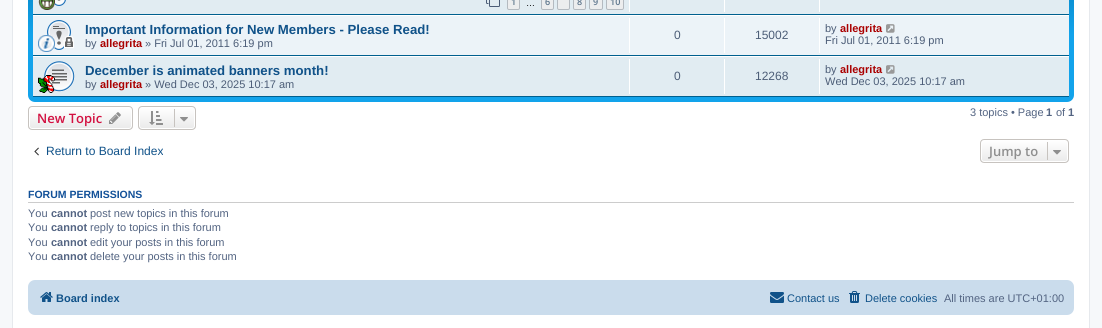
import math
import cairo

surface = cairo.ImageSurface(cairo.FORMAT_RGB24, 1102, 328)
ctx = cairo.Context(surface)
options = cairo.FontOptions()
options.set_hint_metrics(cairo.HINT_METRICS_OFF)
options.set_hint_style(cairo.HINT_STYLE_NONE)
ctx.set_font_options(options)
ctx.set_miter_limit(4)


def round_rect(x, y, w, h, r):
    ctx.new_sub_path()
    for i, (u, v) in enumerate([(x + w - r, y + h - r), (x + r, y + h - r), (x + r, y + r), (x + w - r, y + r)]):
        ctx.arc(u, v, r, i * math.pi / 2, (i + 1) * math.pi / 2)
    ctx.close_path()


def picture(path, x, y, w, h):
    ctx.save()
    ctx.set_source_surface(cairo.ImageSurface.create_from_png(path), x, y)
    ctx.rectangle(x, y, w, h)
    ctx.fill()
    ctx.restore()


ctx.set_source_rgb(0.961, 0.969, 0.98)
ctx.paint()
ctx.set_source_rgb(1, 1, 1)
ctx.rectangle(12.5, -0.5, 1077, 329)
ctx.fill_preserve()
ctx.set_source_rgb(0.902, 0.914, 0.929)
ctx.set_line_width(1)
ctx.stroke()
gradient = cairo.LinearGradient(551, -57, 551, 102)
gradient.add_color_stop_rgba(0, 0.416, 0.808, 1, 1)
gradient.add_color_stop_rgba(0.01, 0, 0.463, 0.694, 1)
gradient.add_color_stop_rgba(0.58, 0.071, 0.639, 0.922, 1)
gradient.add_color_stop_rgba(1, 0.071, 0.639, 0.922, 1)
ctx.set_source(gradient)
round_rect(28, -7, 1046, 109, 7)
ctx.fill()
ctx.set_source_rgb(0.882, 0.922, 0.949)
ctx.rectangle(33, 0, 1036, 14)
ctx.fill()
ctx.set_source_rgb(0, 0.376, 0.561)
ctx.rectangle(33, 14, 1036, 1)
ctx.fill()
picture("img1.png", 55, 0, 11, 6)
picture("img2.png", 38, 0, 17, 10)
picture("img3.png", 486, 0, 14, 7)
ctx.set_source_rgb(0.925, 0.929, 0.933)
round_rect(507.5, -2.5, 12, 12, 1.5)
ctx.fill_preserve()
ctx.set_source_rgb(0.706, 0.729, 0.753)
ctx.stroke()
ctx.select_font_face("Open Sans SemiBold")
ctx.set_font_size(9)
ctx.set_source_rgb(0.361, 0.459, 0.549)
ctx.move_to(511, 5)
ctx.show_text("1")
ctx.select_font_face("Liberation Sans")
ctx.set_source_rgb(0, 0, 0)
ctx.move_to(526, 6)
ctx.show_text("…")
ctx.set_source_rgb(0.925, 0.929, 0.933)
round_rect(541.5, -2.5, 12, 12, 1.5)
ctx.fill_preserve()
ctx.set_source_rgb(0.706, 0.729, 0.753)
ctx.stroke()
ctx.select_font_face("Open Sans SemiBold")
ctx.set_source_rgb(0.361, 0.459, 0.549)
ctx.move_to(545, 5)
ctx.show_text("6")
ctx.set_source_rgb(0.925, 0.929, 0.933)
round_rect(557.5, -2.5, 12, 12, 1.5)
ctx.fill_preserve()
ctx.set_source_rgb(0.706, 0.729, 0.753)
ctx.stroke()
ctx.set_source_rgb(0.925, 0.929, 0.933)
round_rect(573.5, -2.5, 12, 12, 1.5)
ctx.fill_preserve()
ctx.set_source_rgb(0.706, 0.729, 0.753)
ctx.stroke()
ctx.set_source_rgb(0.361, 0.459, 0.549)
ctx.move_to(577, 5)
ctx.show_text("8")
ctx.set_source_rgb(0.925, 0.929, 0.933)
round_rect(589.5, -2.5, 13, 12, 1.5)
ctx.fill_preserve()
ctx.set_source_rgb(0.706, 0.729, 0.753)
ctx.stroke()
ctx.set_source_rgb(0.361, 0.459, 0.549)
ctx.move_to(593, 5)
ctx.show_text("9")
ctx.set_source_rgb(0.925, 0.929, 0.933)
round_rect(606.5, -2.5, 17, 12, 1.5)
ctx.fill_preserve()
ctx.set_source_rgb(0.706, 0.729, 0.753)
ctx.stroke()
ctx.set_source_rgb(0.361, 0.459, 0.549)
ctx.move_to(610, 5)
ctx.show_text("10")
ctx.set_source_rgb(1, 1, 1)
ctx.rectangle(629, 0, 1, 12)
ctx.fill()
ctx.rectangle(724, 0, 1, 12)
ctx.fill()
ctx.rectangle(819, 0, 1, 12)
ctx.fill()
ctx.set_source_rgb(0.925, 0.953, 0.969)
ctx.rectangle(33, 16, 1036, 39)
ctx.fill()
ctx.set_source_rgb(1, 1, 1)
ctx.rectangle(33, 15, 1036, 1)
ctx.fill()
ctx.set_source_rgb(0, 0.376, 0.561)
ctx.rectangle(33, 55, 1036, 1)
ctx.fill()
picture("img4.png", 47, 20, 27, 30)
picture("img5.png", 38, 35, 17, 17)
ctx.select_font_face("Liberation Sans", cairo.FONT_SLANT_NORMAL, cairo.FONT_WEIGHT_BOLD)
ctx.set_font_size(13.2)
ctx.set_source_rgb(0.063, 0.322, 0.537)
ctx.move_to(85, 34)
ctx.show_text("Important Information for New Members - Please Read!")
ctx.select_font_face("Liberation Sans")
ctx.set_font_size(11)
ctx.set_source_rgb(0.298, 0.365, 0.467)
ctx.move_to(85, 47)
ctx.show_text("by")
ctx.select_font_face("Liberation Sans", cairo.FONT_SLANT_NORMAL, cairo.FONT_WEIGHT_BOLD)
ctx.set_source_rgb(0.667, 0, 0)
ctx.move_to(100, 47)
ctx.show_text("allegrita")
ctx.select_font_face("Liberation Sans")
ctx.set_source_rgb(0.298, 0.365, 0.467)
ctx.move_to(145, 47)
ctx.show_text("» Fri Jul 01, 2011 6:19 pm")
ctx.set_source_rgb(1, 1, 1)
ctx.rectangle(629, 18, 1, 35)
ctx.fill()
ctx.set_font_size(12)
ctx.set_source_rgb(0.298, 0.365, 0.467)
ctx.move_to(674, 39)
ctx.show_text("0")
ctx.set_source_rgb(1, 1, 1)
ctx.rectangle(724, 18, 1, 35)
ctx.fill()
ctx.set_source_rgb(0.298, 0.365, 0.467)
ctx.move_to(755, 39)
ctx.show_text("15002")
ctx.set_source_rgb(1, 1, 1)
ctx.rectangle(819, 18, 1, 35)
ctx.fill()
ctx.set_font_size(11)
ctx.set_source_rgb(0.298, 0.365, 0.467)
ctx.move_to(825, 32)
ctx.show_text("by")
ctx.select_font_face("Liberation Sans", cairo.FONT_SLANT_NORMAL, cairo.FONT_WEIGHT_BOLD)
ctx.set_source_rgb(0.667, 0, 0)
ctx.move_to(840, 32)
ctx.show_text("allegrita")
picture("img6.png", 886, 24, 9, 9)
ctx.select_font_face("Liberation Sans")
ctx.set_source_rgb(0.298, 0.365, 0.467)
ctx.move_to(825, 44)
ctx.show_text("Fri Jul 01, 2011 6:19 pm")
ctx.set_source_rgb(0.882, 0.922, 0.949)
ctx.rectangle(33, 57, 1036, 39)
ctx.fill()
ctx.set_source_rgb(1, 1, 1)
ctx.rectangle(33, 56, 1036, 1)
ctx.fill()
ctx.set_source_rgb(0, 0.376, 0.561)
ctx.rectangle(33, 96, 1036, 1)
ctx.fill()
picture("img7.png", 44, 61, 31, 31)
picture("img8.png", 38, 75, 17, 18)
ctx.select_font_face("Liberation Sans", cairo.FONT_SLANT_NORMAL, cairo.FONT_WEIGHT_BOLD)
ctx.set_font_size(13.2)
ctx.set_source_rgb(0.063, 0.322, 0.537)
ctx.move_to(85, 75)
ctx.show_text("December is animated banners month!")
ctx.select_font_face("Liberation Sans")
ctx.set_font_size(11)
ctx.set_source_rgb(0.298, 0.365, 0.467)
ctx.move_to(85, 88)
ctx.show_text("by")
ctx.select_font_face("Liberation Sans", cairo.FONT_SLANT_NORMAL, cairo.FONT_WEIGHT_BOLD)
ctx.set_source_rgb(0.667, 0, 0)
ctx.move_to(100, 88)
ctx.show_text("allegrita")
ctx.select_font_face("Liberation Sans")
ctx.set_source_rgb(0.298, 0.365, 0.467)
ctx.move_to(145, 88)
ctx.show_text("» Wed Dec 03, 2025 10:17 am")
ctx.set_source_rgb(1, 1, 1)
ctx.rectangle(629, 59, 1, 35)
ctx.fill()
ctx.set_font_size(12)
ctx.set_source_rgb(0.298, 0.365, 0.467)
ctx.move_to(674, 80)
ctx.show_text("0")
ctx.set_source_rgb(1, 1, 1)
ctx.rectangle(724, 59, 1, 35)
ctx.fill()
ctx.set_source_rgb(0.298, 0.365, 0.467)
ctx.move_to(755, 80)
ctx.show_text("12268")
ctx.set_source_rgb(1, 1, 1)
ctx.rectangle(819, 59, 1, 35)
ctx.fill()
ctx.set_font_size(11)
ctx.set_source_rgb(0.298, 0.365, 0.467)
ctx.move_to(825, 73)
ctx.show_text("by")
ctx.select_font_face("Liberation Sans", cairo.FONT_SLANT_NORMAL, cairo.FONT_WEIGHT_BOLD)
ctx.set_source_rgb(0.667, 0, 0)
ctx.move_to(840, 73)
ctx.show_text("allegrita")
picture("img9.png", 886, 65, 9, 9)
ctx.select_font_face("Liberation Sans")
ctx.set_source_rgb(0.298, 0.365, 0.467)
ctx.move_to(825, 85)
ctx.show_text("Wed Dec 03, 2025 10:17 am")
ctx.save()
round_rect(28, 106, 105, 24, 4)
ctx.clip()
gradient = cairo.LinearGradient(81, 107, 81, 129)
gradient.add_color_stop_rgba(0, 1, 1, 1, 1)
gradient.add_color_stop_rgba(1, 0.914, 0.914, 0.914, 1)
ctx.set_source(gradient)
ctx.rectangle(28, 107, 105, 22)
ctx.fill()
ctx.restore()
round_rect(29.5, 107.5, 102, 21, 2.5)
ctx.set_source_rgb(1, 1, 1)
ctx.stroke()
round_rect(28.5, 106.5, 104, 23, 3.5)
ctx.set_source_rgb(0.78, 0.765, 0.749)
ctx.stroke()
ctx.select_font_face("Open Sans SemiBold")
ctx.set_font_size(13)
ctx.set_source_rgb(0.827, 0.067, 0.255)
ctx.move_to(37, 123)
ctx.show_text("New Topic")
picture("img10.png", 109, 112, 12, 12)
ctx.save()
round_rect(138, 106, 58, 24, 4)
ctx.clip()
gradient = cairo.LinearGradient(167, 107, 167, 129)
gradient.add_color_stop_rgba(0, 1, 1, 1, 1)
gradient.add_color_stop_rgba(1, 0.914, 0.914, 0.914, 1)
ctx.set_source(gradient)
ctx.rectangle(138, 107, 58, 22)
ctx.fill()
ctx.restore()
round_rect(139.5, 107.5, 55, 21, 2.5)
ctx.set_source_rgb(1, 1, 1)
ctx.stroke()
round_rect(138.5, 106.5, 57, 23, 3.5)
ctx.set_source_rgb(0.78, 0.765, 0.749)
ctx.stroke()
picture("img11.png", 149, 111, 14, 14)
ctx.rectangle(174, 109, 1, 18)
ctx.fill()
picture("img12.png", 180, 117, 8, 5)
ctx.select_font_face("Liberation Sans")
ctx.set_font_size(11)
ctx.set_source_rgb(0.325, 0.392, 0.51)
ctx.move_to(970, 116)
ctx.show_text("3 topics • Page")
ctx.select_font_face("Liberation Sans", cairo.FONT_SLANT_NORMAL, cairo.FONT_WEIGHT_BOLD)
ctx.move_to(1046, 116)
ctx.show_text("1")
ctx.select_font_face("Liberation Sans")
ctx.move_to(1056, 116)
ctx.show_text("of")
ctx.select_font_face("Liberation Sans", cairo.FONT_SLANT_NORMAL, cairo.FONT_WEIGHT_BOLD)
ctx.move_to(1068, 116)
ctx.show_text("1")
picture("img13.png", 34, 147, 5, 9)
ctx.select_font_face("Liberation Sans")
ctx.set_font_size(12)
ctx.set_source_rgb(0.063, 0.322, 0.537)
ctx.move_to(46, 155)
ctx.show_text("Return to Board Index")
ctx.save()
round_rect(980, 139, 89, 24, 4)
ctx.clip()
gradient = cairo.LinearGradient(1025, 140, 1025, 162)
gradient.add_color_stop_rgba(0, 1, 1, 1, 1)
gradient.add_color_stop_rgba(1, 0.914, 0.914, 0.914, 1)
ctx.set_source(gradient)
ctx.rectangle(980, 140, 89, 22)
ctx.fill()
ctx.restore()
round_rect(981.5, 140.5, 86, 21, 2.5)
ctx.set_source_rgb(1, 1, 1)
ctx.stroke()
round_rect(980.5, 139.5, 88, 23, 3.5)
ctx.set_source_rgb(0.78, 0.765, 0.749)
ctx.stroke()
ctx.select_font_face("Open Sans SemiBold")
ctx.set_font_size(13)
ctx.set_source_rgb(0.561, 0.561, 0.561)
ctx.move_to(989, 156)
ctx.show_text("Jump to")
ctx.set_source_rgb(0.78, 0.765, 0.749)
ctx.rectangle(1047, 142, 1, 18)
ctx.fill()
picture("img12.png", 1053, 150, 8, 5)
ctx.set_source_rgb(0.8, 0.8, 0.8)
ctx.rectangle(28, 202, 1046, 1)
ctx.fill()
ctx.select_font_face("Liberation Sans", cairo.FONT_SLANT_NORMAL, cairo.FONT_WEIGHT_BOLD)
ctx.set_font_size(10.5)
ctx.set_source_rgb(0.067, 0.314, 0.596)
ctx.move_to(28, 198)
ctx.show_text("FORUM PERMISSIONS")
ctx.select_font_face("Liberation Sans")
ctx.set_font_size(11)
ctx.set_source_rgb(0.325, 0.392, 0.51)
ctx.move_to(28, 217)
ctx.show_text("You")
ctx.select_font_face("Liberation Sans", cairo.FONT_SLANT_NORMAL, cairo.FONT_WEIGHT_BOLD)
ctx.move_to(51, 217)
ctx.show_text("cannot")
ctx.select_font_face("Liberation Sans")
ctx.move_to(90, 217)
ctx.show_text("post new topics in this forum")
ctx.move_to(28, 231)
ctx.show_text("You")
ctx.select_font_face("Liberation Sans", cairo.FONT_SLANT_NORMAL, cairo.FONT_WEIGHT_BOLD)
ctx.move_to(51, 231)
ctx.show_text("cannot")
ctx.select_font_face("Liberation Sans")
ctx.move_to(90, 231)
ctx.show_text("reply to topics in this forum")
ctx.move_to(28, 246)
ctx.show_text("You")
ctx.select_font_face("Liberation Sans", cairo.FONT_SLANT_NORMAL, cairo.FONT_WEIGHT_BOLD)
ctx.move_to(51, 246)
ctx.show_text("cannot")
ctx.select_font_face("Liberation Sans")
ctx.move_to(90, 246)
ctx.show_text("edit your posts in this forum")
ctx.move_to(28, 260)
ctx.show_text("You")
ctx.select_font_face("Liberation Sans", cairo.FONT_SLANT_NORMAL, cairo.FONT_WEIGHT_BOLD)
ctx.move_to(51, 260)
ctx.show_text("cannot")
ctx.select_font_face("Liberation Sans")
ctx.move_to(90, 260)
ctx.show_text("delete your posts in this forum")
ctx.set_source_rgb(0.792, 0.863, 0.922)
round_rect(28, 280, 1046, 35, 7)
ctx.fill()
picture("img14.png", 40, 292, 13, 10)
ctx.select_font_face("Liberation Sans", cairo.FONT_SLANT_NORMAL, cairo.FONT_WEIGHT_BOLD)
ctx.set_source_rgb(0.063, 0.322, 0.537)
ctx.move_to(56, 302)
ctx.show_text("Board index")
picture("img15.png", 770, 292, 14, 11)
ctx.select_font_face("Liberation Sans")
ctx.move_to(787, 302)
ctx.show_text("Contact us")
picture("img16.png", 849, 291, 11, 12)
ctx.move_to(865, 302)
ctx.show_text("Delete cookies")
ctx.set_source_rgb(0.325, 0.392, 0.51)
ctx.move_to(944, 302)
ctx.show_text("All times are UTC+01:00")
surface.write_to_png("page.png")
